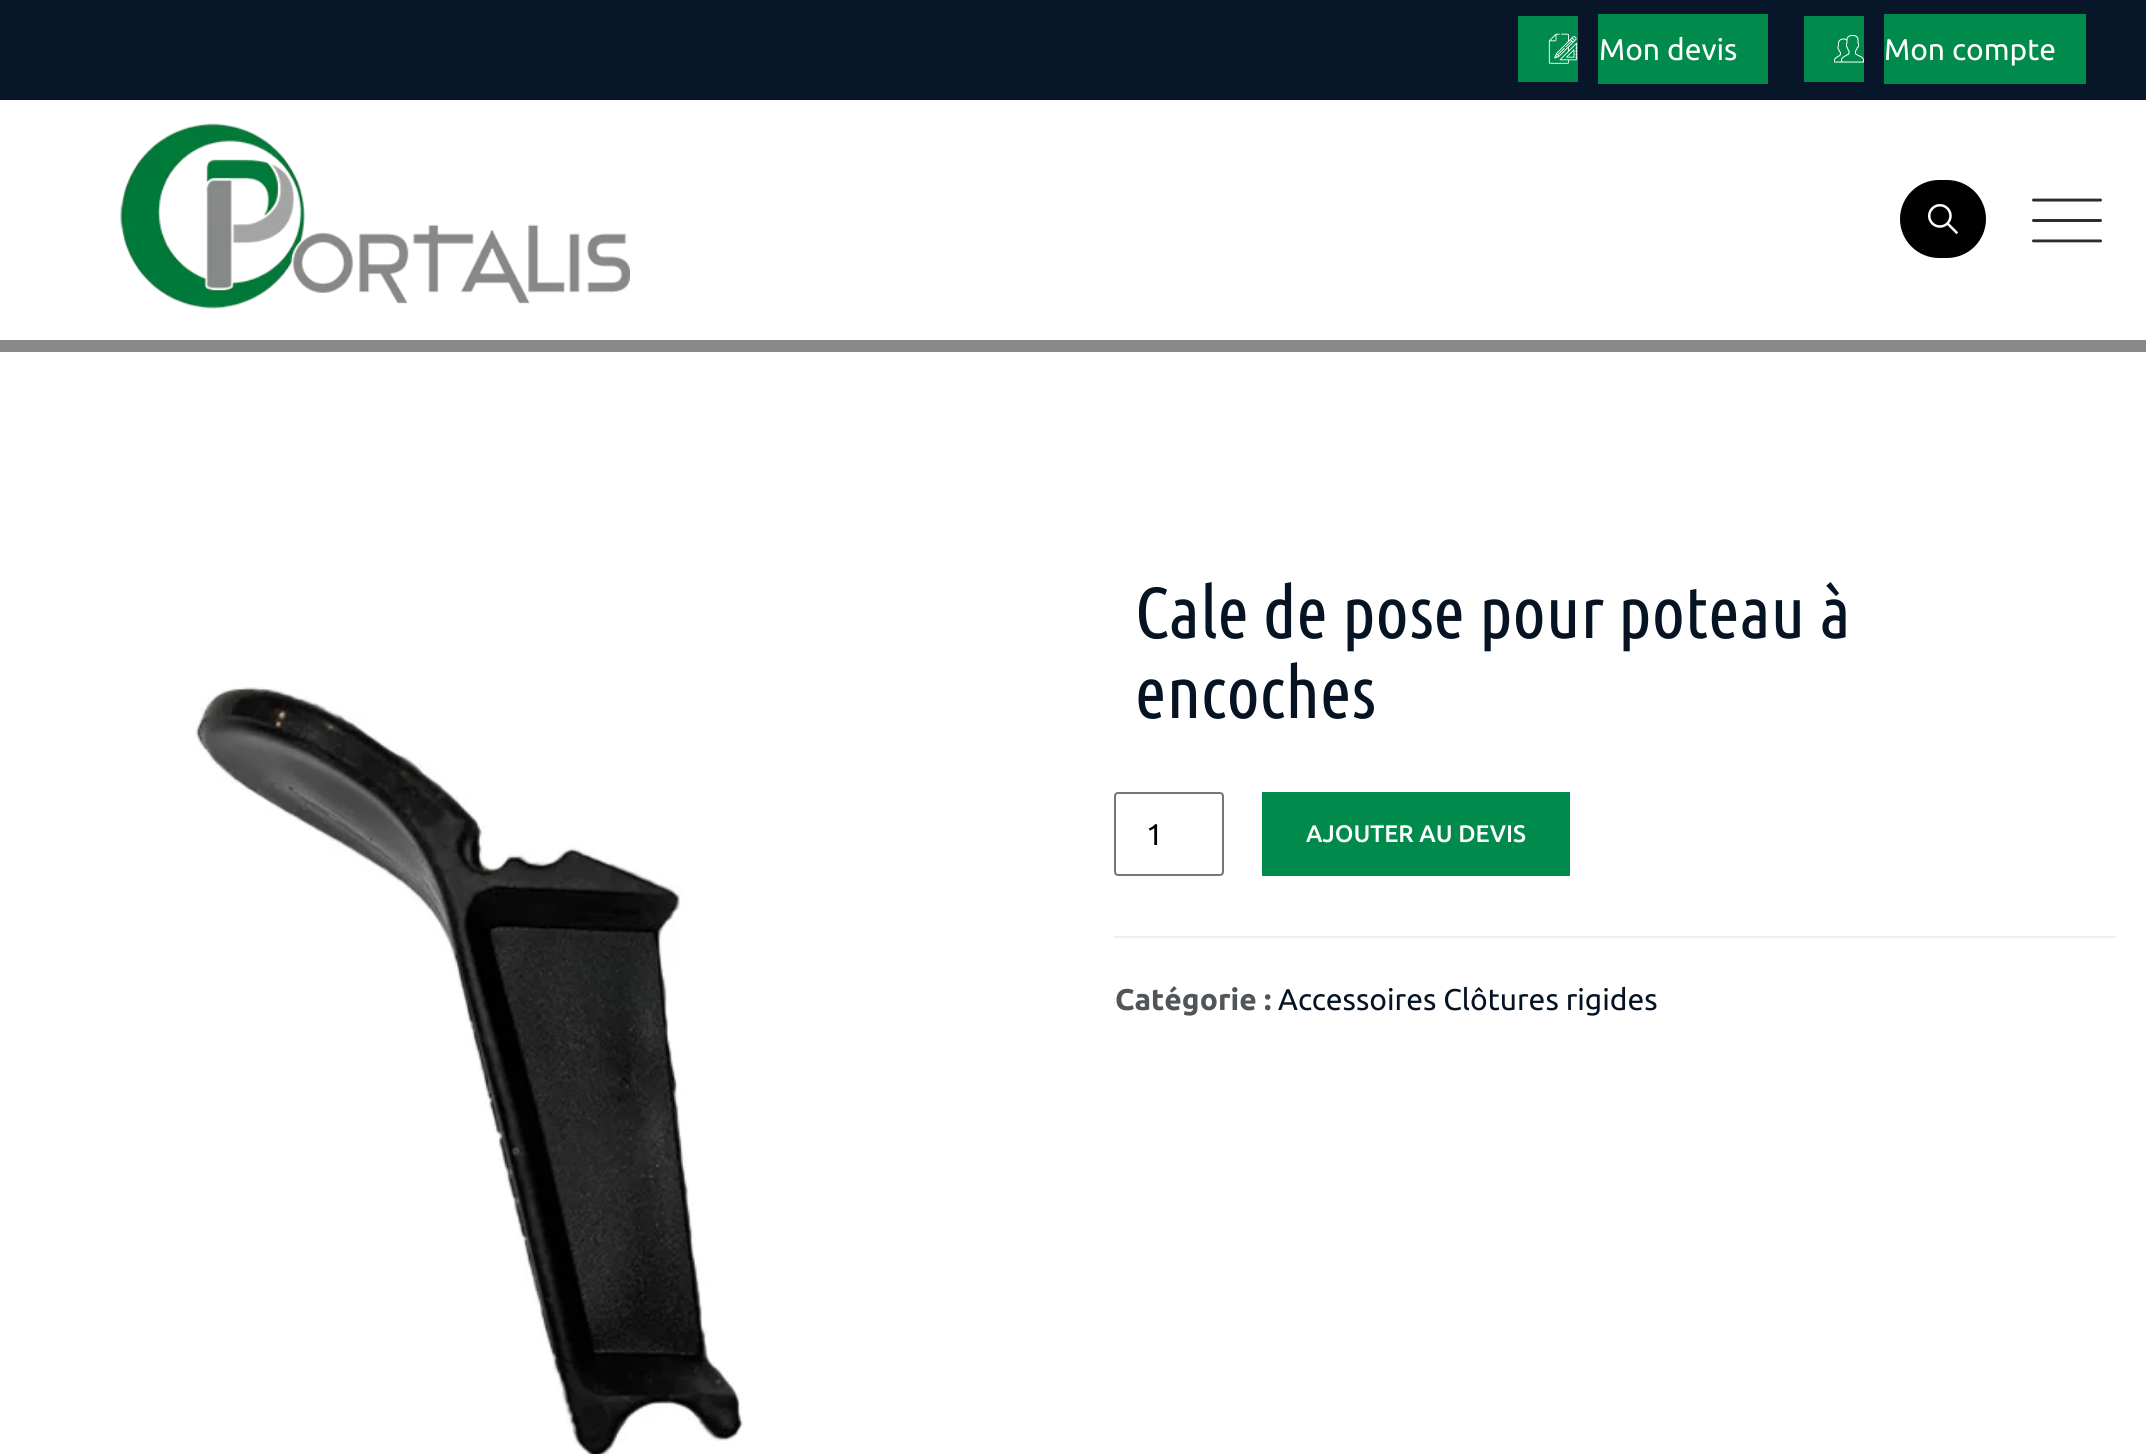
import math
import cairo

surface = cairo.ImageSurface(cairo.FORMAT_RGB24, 2146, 1454)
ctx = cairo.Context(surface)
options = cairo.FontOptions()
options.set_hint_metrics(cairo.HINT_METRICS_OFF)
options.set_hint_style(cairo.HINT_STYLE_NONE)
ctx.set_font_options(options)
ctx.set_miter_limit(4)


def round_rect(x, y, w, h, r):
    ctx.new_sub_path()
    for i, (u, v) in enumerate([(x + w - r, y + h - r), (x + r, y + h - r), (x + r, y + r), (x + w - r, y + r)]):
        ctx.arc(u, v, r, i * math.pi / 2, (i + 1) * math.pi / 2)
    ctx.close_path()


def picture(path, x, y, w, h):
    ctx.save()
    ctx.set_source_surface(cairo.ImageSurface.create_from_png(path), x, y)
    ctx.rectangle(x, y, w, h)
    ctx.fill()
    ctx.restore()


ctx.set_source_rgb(1, 1, 1)
ctx.paint()
ctx.set_source_rgb(0.035, 0.086, 0.165)
ctx.rectangle(0, 0, 2146, 100)
ctx.fill()
ctx.set_source_rgb(0, 0.541, 0.294)
ctx.rectangle(1518, 16, 60, 66)
ctx.fill()
picture("img1.png", 1548, 33, 30, 31)
ctx.rectangle(1598, 14, 170, 70)
ctx.fill()
ctx.select_font_face("Ubuntu")
ctx.set_font_size(30)
ctx.set_source_rgb(1, 1, 1)
ctx.move_to(1599, 60)
ctx.show_text("Mon devis")
ctx.set_source_rgb(0, 0.541, 0.294)
ctx.rectangle(1804, 16, 60, 66)
ctx.fill()
picture("img2.png", 1834, 35, 30, 28)
ctx.rectangle(1884, 14, 202, 70)
ctx.fill()
ctx.set_source_rgb(1, 1, 1)
ctx.move_to(1884, 60)
ctx.show_text("Mon compte")
picture("img3.png", 120, 123, 510, 186)
ctx.set_source_rgb(0, 0, 0)
round_rect(1900, 180, 86, 78, 39)
ctx.fill()
picture("img4.png", 1928, 204, 30, 30)
picture("img5.png", 2032, 198, 70, 45)
ctx.set_source_rgb(0.529, 0.533, 0.533)
ctx.rectangle(0, 340, 2146, 12)
ctx.fill()
picture("img6.png", 193, 687, 550, 767)
ctx.select_font_face("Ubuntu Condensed")
ctx.set_font_size(72)
ctx.set_source_rgb(0.027, 0.075, 0.137)
ctx.move_to(1135, 638)
ctx.show_text("Cale de pose pour poteau à")
ctx.move_to(1135, 718)
ctx.show_text("encoches")
round_rect(1115, 793, 108, 82, 3)
ctx.set_source_rgb(0.463, 0.463, 0.463)
ctx.stroke()
ctx.select_font_face("Ubuntu")
ctx.set_font_size(30)
ctx.set_source_rgb(0, 0, 0)
ctx.move_to(1146, 845)
ctx.show_text("1")
ctx.set_source_rgb(0, 0.541, 0.294)
ctx.rectangle(1262, 792, 308, 84)
ctx.fill()
ctx.select_font_face("Ubuntu Medium")
ctx.set_font_size(24)
ctx.set_source_rgb(1, 1, 1)
ctx.move_to(1306, 842)
ctx.show_text("AJOUTER AU DEVIS")
ctx.set_source_rgb(0.937, 0.937, 0.937)
ctx.rectangle(1114, 936, 1002, 2)
ctx.fill()
ctx.select_font_face("Ubuntu", cairo.FONT_SLANT_NORMAL, cairo.FONT_WEIGHT_BOLD)
ctx.set_font_size(30)
ctx.set_source_rgb(0.322, 0.333, 0.345)
ctx.move_to(1115, 1010)
ctx.show_text("Catégorie :")
ctx.select_font_face("Ubuntu")
ctx.set_source_rgb(0.027, 0.075, 0.137)
ctx.move_to(1278, 1010)
ctx.show_text("Accessoires Clôtures rigides")
surface.write_to_png("page.png")
